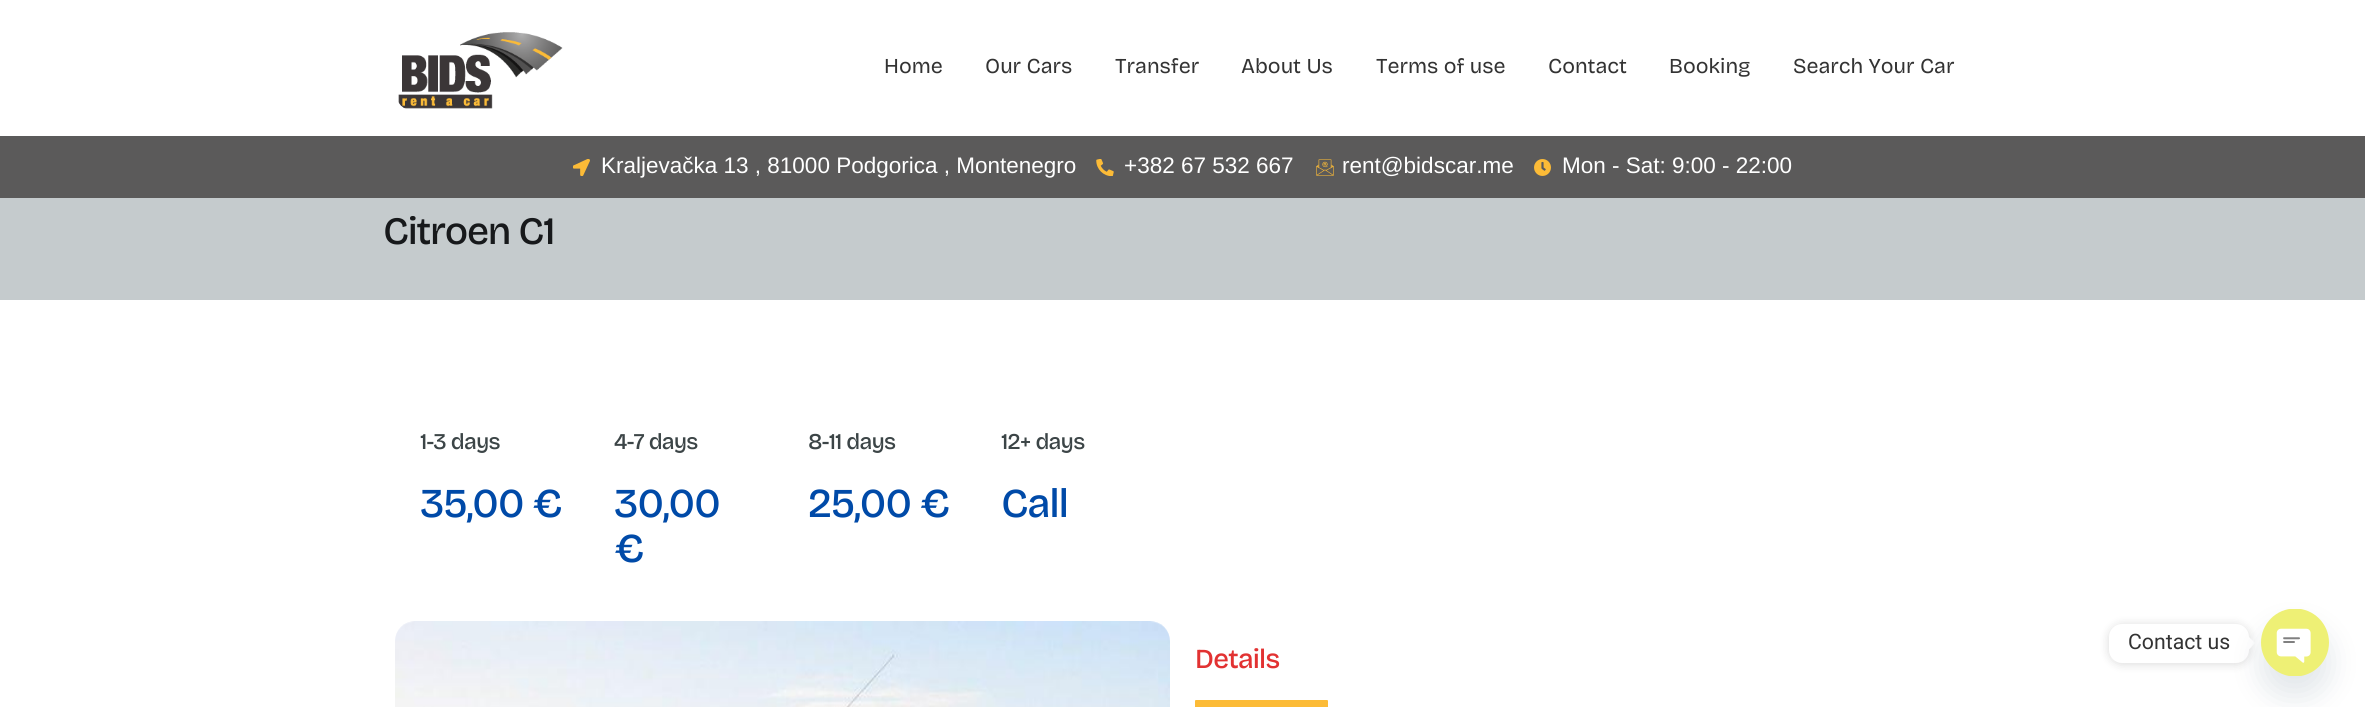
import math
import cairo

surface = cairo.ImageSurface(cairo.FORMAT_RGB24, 2365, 707)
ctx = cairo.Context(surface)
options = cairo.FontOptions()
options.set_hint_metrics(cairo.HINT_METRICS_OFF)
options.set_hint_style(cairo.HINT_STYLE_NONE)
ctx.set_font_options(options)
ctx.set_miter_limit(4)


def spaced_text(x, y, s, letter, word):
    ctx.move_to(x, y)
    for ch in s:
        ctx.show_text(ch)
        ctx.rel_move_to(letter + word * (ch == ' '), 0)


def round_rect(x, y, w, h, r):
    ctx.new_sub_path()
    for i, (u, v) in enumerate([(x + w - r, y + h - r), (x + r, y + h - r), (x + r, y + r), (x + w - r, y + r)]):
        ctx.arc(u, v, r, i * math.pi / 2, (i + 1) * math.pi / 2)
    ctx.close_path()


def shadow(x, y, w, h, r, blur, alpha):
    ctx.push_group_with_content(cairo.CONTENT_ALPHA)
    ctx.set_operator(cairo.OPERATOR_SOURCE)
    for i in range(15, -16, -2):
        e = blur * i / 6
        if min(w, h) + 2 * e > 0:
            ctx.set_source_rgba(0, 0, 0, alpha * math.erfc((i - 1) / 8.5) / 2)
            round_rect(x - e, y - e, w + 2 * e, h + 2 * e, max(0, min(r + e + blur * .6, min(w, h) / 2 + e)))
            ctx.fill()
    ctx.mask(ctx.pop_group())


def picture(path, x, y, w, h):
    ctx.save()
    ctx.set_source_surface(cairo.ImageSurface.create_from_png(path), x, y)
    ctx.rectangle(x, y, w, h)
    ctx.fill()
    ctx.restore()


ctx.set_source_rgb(1, 1, 1)
ctx.paint()
picture("img1.png", 398, 32, 165, 77)
ctx.select_font_face("Bricolage Grotesque")
ctx.set_font_size(21.25)
ctx.set_source_rgb(0.2, 0.2, 0.2)
ctx.move_to(884, 73)
ctx.show_text("Home")
ctx.move_to(985, 73)
ctx.show_text("Our Cars")
ctx.move_to(1115, 73)
ctx.show_text("Transfer")
ctx.move_to(1241, 73)
ctx.show_text("About Us")
ctx.move_to(1376, 73)
ctx.show_text("Terms of use")
ctx.move_to(1548, 73)
ctx.show_text("Contact")
ctx.move_to(1669, 73)
ctx.show_text("Booking")
ctx.move_to(1793, 73)
ctx.show_text("Search Your Car")
ctx.set_source_rgb(0.357, 0.353, 0.353)
ctx.rectangle(0, 136, 2365, 62)
ctx.fill()
picture("img2.png", 573, 159, 17, 17)
ctx.select_font_face("Liberation Sans")
ctx.set_font_size(22.5)
ctx.set_source_rgb(1, 1, 1)
ctx.move_to(601, 173)
ctx.show_text("Kraljevačka 13 , 81000 Podgorica , Montenegro")
picture("img3.png", 1096, 159, 18, 17)
ctx.move_to(1124, 173)
ctx.show_text("+382 67 532 667")
picture("img4.png", 1316, 159, 18, 17)
ctx.move_to(1342, 173)
ctx.show_text("rent@bidscar.me")
picture("img5.png", 1534, 159, 17, 17)
ctx.move_to(1562, 173)
ctx.show_text("Mon - Sat: 9:00 - 22:00")
ctx.set_source_rgb(0.773, 0.796, 0.804)
ctx.rectangle(0, 198, 2365, 102)
ctx.fill()
ctx.select_font_face("Bricolage Grotesque Medium")
ctx.set_font_size(38.75)
ctx.set_source_rgb(0.09, 0.098, 0.106)
spaced_text(383, 244, "Citroen C1", -1.25, 0)
ctx.set_font_size(22.5)
ctx.set_source_rgb(0.235, 0.271, 0.278)
spaced_text(420, 449, "1-3 days", -0.75, 0)
ctx.set_font_size(41)
ctx.set_source_rgb(0, 0.29, 0.659)
spaced_text(420, 517, "35,00 €", -1.25, 0)
ctx.set_font_size(22.5)
ctx.set_source_rgb(0.235, 0.271, 0.278)
spaced_text(614, 449, "4-7 days", -0.75, 0)
ctx.set_font_size(41)
ctx.set_source_rgb(0, 0.29, 0.659)
spaced_text(614, 517, "30,00", -1.25, 0)
spaced_text(614, 562, "€", -1.25, 0)
ctx.set_font_size(22.5)
ctx.set_source_rgb(0.235, 0.271, 0.278)
spaced_text(808, 449, "8-11 days", -0.75, 0)
ctx.set_font_size(41)
ctx.set_source_rgb(0, 0.29, 0.659)
spaced_text(808, 517, "25,00 €", -1.25, 0)
ctx.set_font_size(22.5)
ctx.set_source_rgb(0.235, 0.271, 0.278)
spaced_text(1001, 449, "12+ days", -0.75, 0)
ctx.set_font_size(41)
ctx.set_source_rgb(0, 0.29, 0.659)
spaced_text(1001, 517, "Call", -1.25, 0)
picture("img6.png", 395, 621, 775, 86)
ctx.set_font_size(27.5)
ctx.set_source_rgb(0.886, 0.196, 0.196)
spaced_text(1195, 668, "Details", -0.75, 0)
ctx.set_source_rgb(0.988, 0.733, 0.216)
round_rect(1195, 700, 133, 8, 1)
ctx.fill()
ctx.set_source_rgb(0, 0, 0)
shadow(2109, 625, 140, 39, 13, 5, 0.15)
ctx.set_source_rgb(1, 1, 1)
round_rect(2109, 624, 140, 39, 13)
ctx.fill()
ctx.select_font_face("Roboto")
ctx.set_font_size(21.25)
ctx.set_source_rgb(0.2, 0.2, 0.2)
ctx.move_to(2128, 649)
ctx.show_text("Contact us")
ctx.set_source_rgb(1, 1, 1)
ctx.new_path()
ctx.move_to(2249, 649.5)
ctx.line_to(2249, 637)
ctx.line_to(2255, 643)
ctx.close_path()
ctx.fill()
ctx.set_source_rgb(0.286, 0.408, 0.494)
shadow(2261, 629, 68, 67, 33.5, 15, 0.16)
picture("img7.png", 2261, 609, 68, 67)
surface.write_to_png("page.png")
